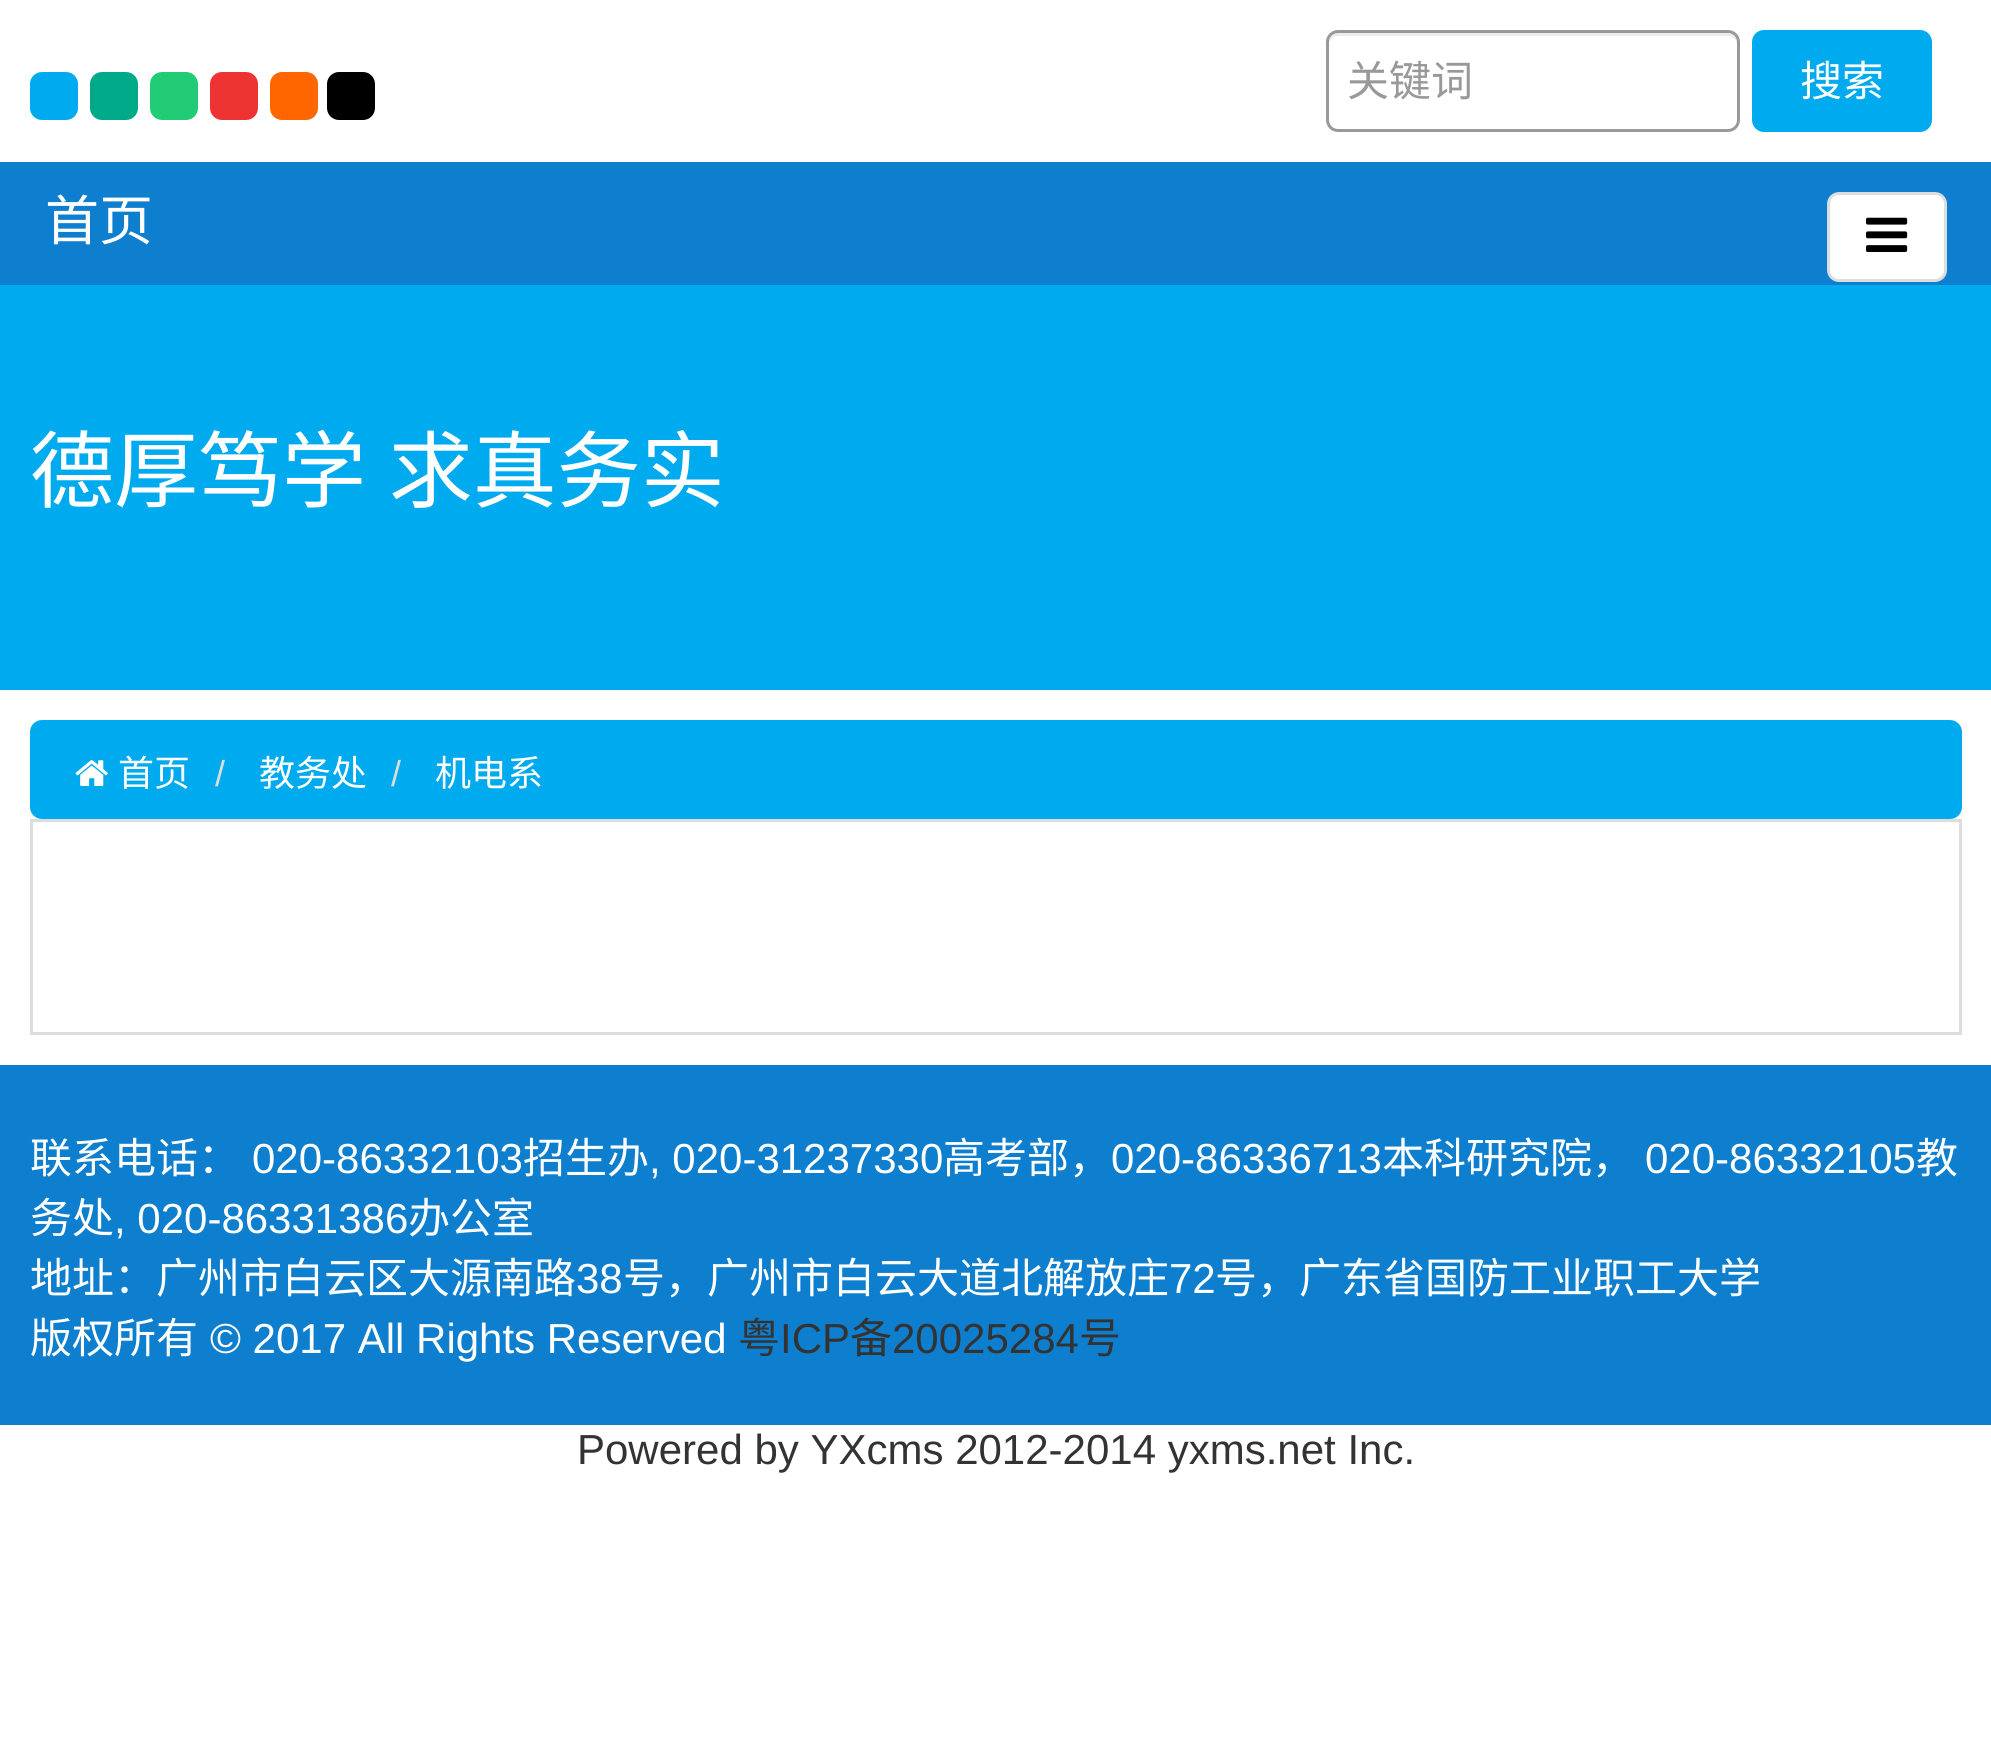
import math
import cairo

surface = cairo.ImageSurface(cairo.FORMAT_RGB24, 1991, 1748)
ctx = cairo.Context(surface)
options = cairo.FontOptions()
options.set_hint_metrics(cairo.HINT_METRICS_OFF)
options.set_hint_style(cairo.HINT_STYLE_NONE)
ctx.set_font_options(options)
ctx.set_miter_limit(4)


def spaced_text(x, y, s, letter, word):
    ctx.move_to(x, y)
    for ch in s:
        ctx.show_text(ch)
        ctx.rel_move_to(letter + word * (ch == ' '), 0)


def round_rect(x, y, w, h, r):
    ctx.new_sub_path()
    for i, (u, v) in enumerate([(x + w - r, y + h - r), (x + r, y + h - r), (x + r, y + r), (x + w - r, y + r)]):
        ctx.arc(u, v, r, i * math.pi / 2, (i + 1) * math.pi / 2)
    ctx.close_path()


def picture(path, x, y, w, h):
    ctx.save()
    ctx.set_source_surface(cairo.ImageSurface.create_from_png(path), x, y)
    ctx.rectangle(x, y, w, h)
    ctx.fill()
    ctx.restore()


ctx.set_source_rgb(1, 1, 1)
ctx.paint()
ctx.set_source_rgb(0, 0.667, 0.933)
round_rect(30, 72, 48, 48, 12)
ctx.fill()
ctx.set_source_rgb(0, 0.667, 0.533)
round_rect(90, 72, 48, 48, 12)
ctx.fill()
ctx.set_source_rgb(0.133, 0.8, 0.467)
round_rect(150, 72, 48, 48, 12)
ctx.fill()
ctx.set_source_rgb(0.933, 0.2, 0.2)
round_rect(210, 72, 48, 48, 12)
ctx.fill()
ctx.set_source_rgb(1, 0.4, 0)
round_rect(270, 72, 48, 48, 12)
ctx.fill()
ctx.set_source_rgb(0, 0, 0)
round_rect(327, 72, 48, 48, 12)
ctx.fill()
ctx.set_source_rgb(0.925, 0.925, 0.925)
ctx.new_path()
ctx.move_to(1338, 36)
ctx.line_to(1728, 36)
ctx.curve_to(1733, 36, 1737, 40, 1737, 45)
ctx.curve_to(1737, 40, 1736, 34, 1730, 33)
ctx.line_to(1336, 33)
ctx.curve_to(1330, 34, 1329, 40, 1329, 45)
ctx.curve_to(1329, 40, 1333, 36, 1338, 36)
ctx.close_path()
ctx.fill()
round_rect(1327.5, 31.5, 411, 99, 10.5)
ctx.set_source_rgb(0.6, 0.6, 0.6)
ctx.set_line_width(3)
ctx.stroke()
ctx.select_font_face("Noto Sans CJK SC")
ctx.set_font_size(42)
ctx.move_to(1347, 96)
ctx.show_text("关键词")
ctx.set_source_rgb(0, 0.667, 0.933)
round_rect(1753.5, 31.5, 177, 99, 10.5)
ctx.fill_preserve()
ctx.stroke()
ctx.set_source_rgb(1, 1, 1)
ctx.move_to(1800, 96)
ctx.show_text("搜索")
ctx.set_source_rgb(0.055, 0.494, 0.808)
ctx.rectangle(0, 162, 1991, 123)
ctx.fill()
ctx.set_font_size(54)
ctx.set_source_rgb(1, 1, 1)
ctx.move_to(45, 240)
ctx.show_text("首页")
round_rect(1828.5, 193.5, 117, 87, 10.5)
ctx.fill_preserve()
ctx.set_source_rgb(0.867, 0.867, 0.867)
ctx.stroke()
picture("img1.png", 1866, 217, 42, 35)
ctx.set_source_rgb(0, 0.667, 0.933)
ctx.rectangle(0, 285, 1991, 405)
ctx.fill()
ctx.set_font_size(84)
ctx.set_source_rgb(1, 1, 1)
spaced_text(30, 501, "德厚笃学 求真务实", 0, 4)
ctx.set_source_rgb(0, 0.667, 0.933)
round_rect(30, 720, 1932, 99, 12)
ctx.fill()
picture("img2.png", 75, 760, 33, 26)
ctx.set_font_size(36)
ctx.set_source_rgb(1, 1, 1)
ctx.move_to(118, 786)
ctx.show_text("首页")
ctx.select_font_face("Liberation Sans")
ctx.set_source_rgb(0.867, 0.867, 0.867)
ctx.move_to(215, 786)
ctx.show_text("/")
ctx.select_font_face("Noto Sans CJK SC")
ctx.set_source_rgb(1, 1, 1)
ctx.move_to(259, 786)
ctx.show_text("教务处")
ctx.select_font_face("Liberation Sans")
ctx.set_source_rgb(0.867, 0.867, 0.867)
ctx.move_to(391, 786)
ctx.show_text("/")
ctx.select_font_face("Noto Sans CJK SC")
ctx.set_source_rgb(1, 1, 1)
ctx.move_to(435, 786)
ctx.show_text("机电系")
ctx.rectangle(31.5, 820.5, 1929, 213)
ctx.set_source_rgb(0.867, 0.867, 0.867)
ctx.stroke()
ctx.set_source_rgb(0.055, 0.494, 0.808)
ctx.rectangle(0, 1065, 1991, 360)
ctx.fill()
ctx.set_font_size(42)
ctx.set_source_rgb(1, 1, 1)
ctx.move_to(30, 1173)
ctx.show_text("联系电话：")
ctx.select_font_face("Liberation Sans")
ctx.move_to(252, 1173)
ctx.show_text("020-86332103")
ctx.select_font_face("Noto Sans CJK SC")
ctx.move_to(523, 1173)
ctx.show_text("招生办")
ctx.select_font_face("Liberation Sans")
ctx.move_to(649, 1173)
ctx.show_text(", 020-31237330")
ctx.select_font_face("Noto Sans CJK SC")
ctx.move_to(943, 1173)
ctx.show_text("高考部，")
ctx.select_font_face("Liberation Sans")
ctx.move_to(1111, 1173)
ctx.show_text("020-86336713")
ctx.select_font_face("Noto Sans CJK SC")
ctx.move_to(1382, 1173)
ctx.show_text("本科研究院，")
ctx.select_font_face("Liberation Sans")
ctx.move_to(1645, 1173)
ctx.show_text("020-86332105")
ctx.select_font_face("Noto Sans CJK SC")
ctx.move_to(1916, 1173)
ctx.show_text("教")
ctx.move_to(30, 1233)
ctx.show_text("务处")
ctx.select_font_face("Liberation Sans")
ctx.move_to(114, 1233)
ctx.show_text(", 020-86331386")
ctx.select_font_face("Noto Sans CJK SC")
ctx.move_to(408, 1233)
ctx.show_text("办公室")
ctx.move_to(30, 1293)
ctx.show_text("地址：广州市白云区大源南路")
ctx.select_font_face("Liberation Sans")
ctx.move_to(576, 1293)
ctx.show_text("38")
ctx.select_font_face("Noto Sans CJK SC")
ctx.move_to(623, 1293)
ctx.show_text("号，广州市白云大道北解放庄")
ctx.select_font_face("Liberation Sans")
ctx.move_to(1169, 1293)
ctx.show_text("72")
ctx.select_font_face("Noto Sans CJK SC")
ctx.move_to(1215, 1293)
ctx.show_text("号，广东省国防工业职工大学")
ctx.move_to(30, 1353)
ctx.show_text("版权所有")
ctx.select_font_face("Liberation Sans")
ctx.move_to(210, 1353)
ctx.show_text("© 2017 All Rights Reserved")
ctx.select_font_face("Noto Sans CJK SC")
ctx.set_source_rgb(0.2, 0.2, 0.2)
ctx.move_to(738, 1353)
ctx.show_text("粤")
ctx.select_font_face("Liberation Sans")
ctx.move_to(780, 1353)
ctx.show_text("ICP")
ctx.select_font_face("Noto Sans CJK SC")
ctx.move_to(850, 1353)
ctx.show_text("备")
ctx.select_font_face("Liberation Sans")
ctx.move_to(892, 1353)
ctx.show_text("20025284")
ctx.select_font_face("Noto Sans CJK SC")
ctx.move_to(1079, 1353)
ctx.show_text("号")
ctx.select_font_face("Liberation Sans")
ctx.move_to(577, 1464)
ctx.show_text("Powered by YXcms 2012-2014 yxms.net Inc.")
surface.write_to_png("page.png")
